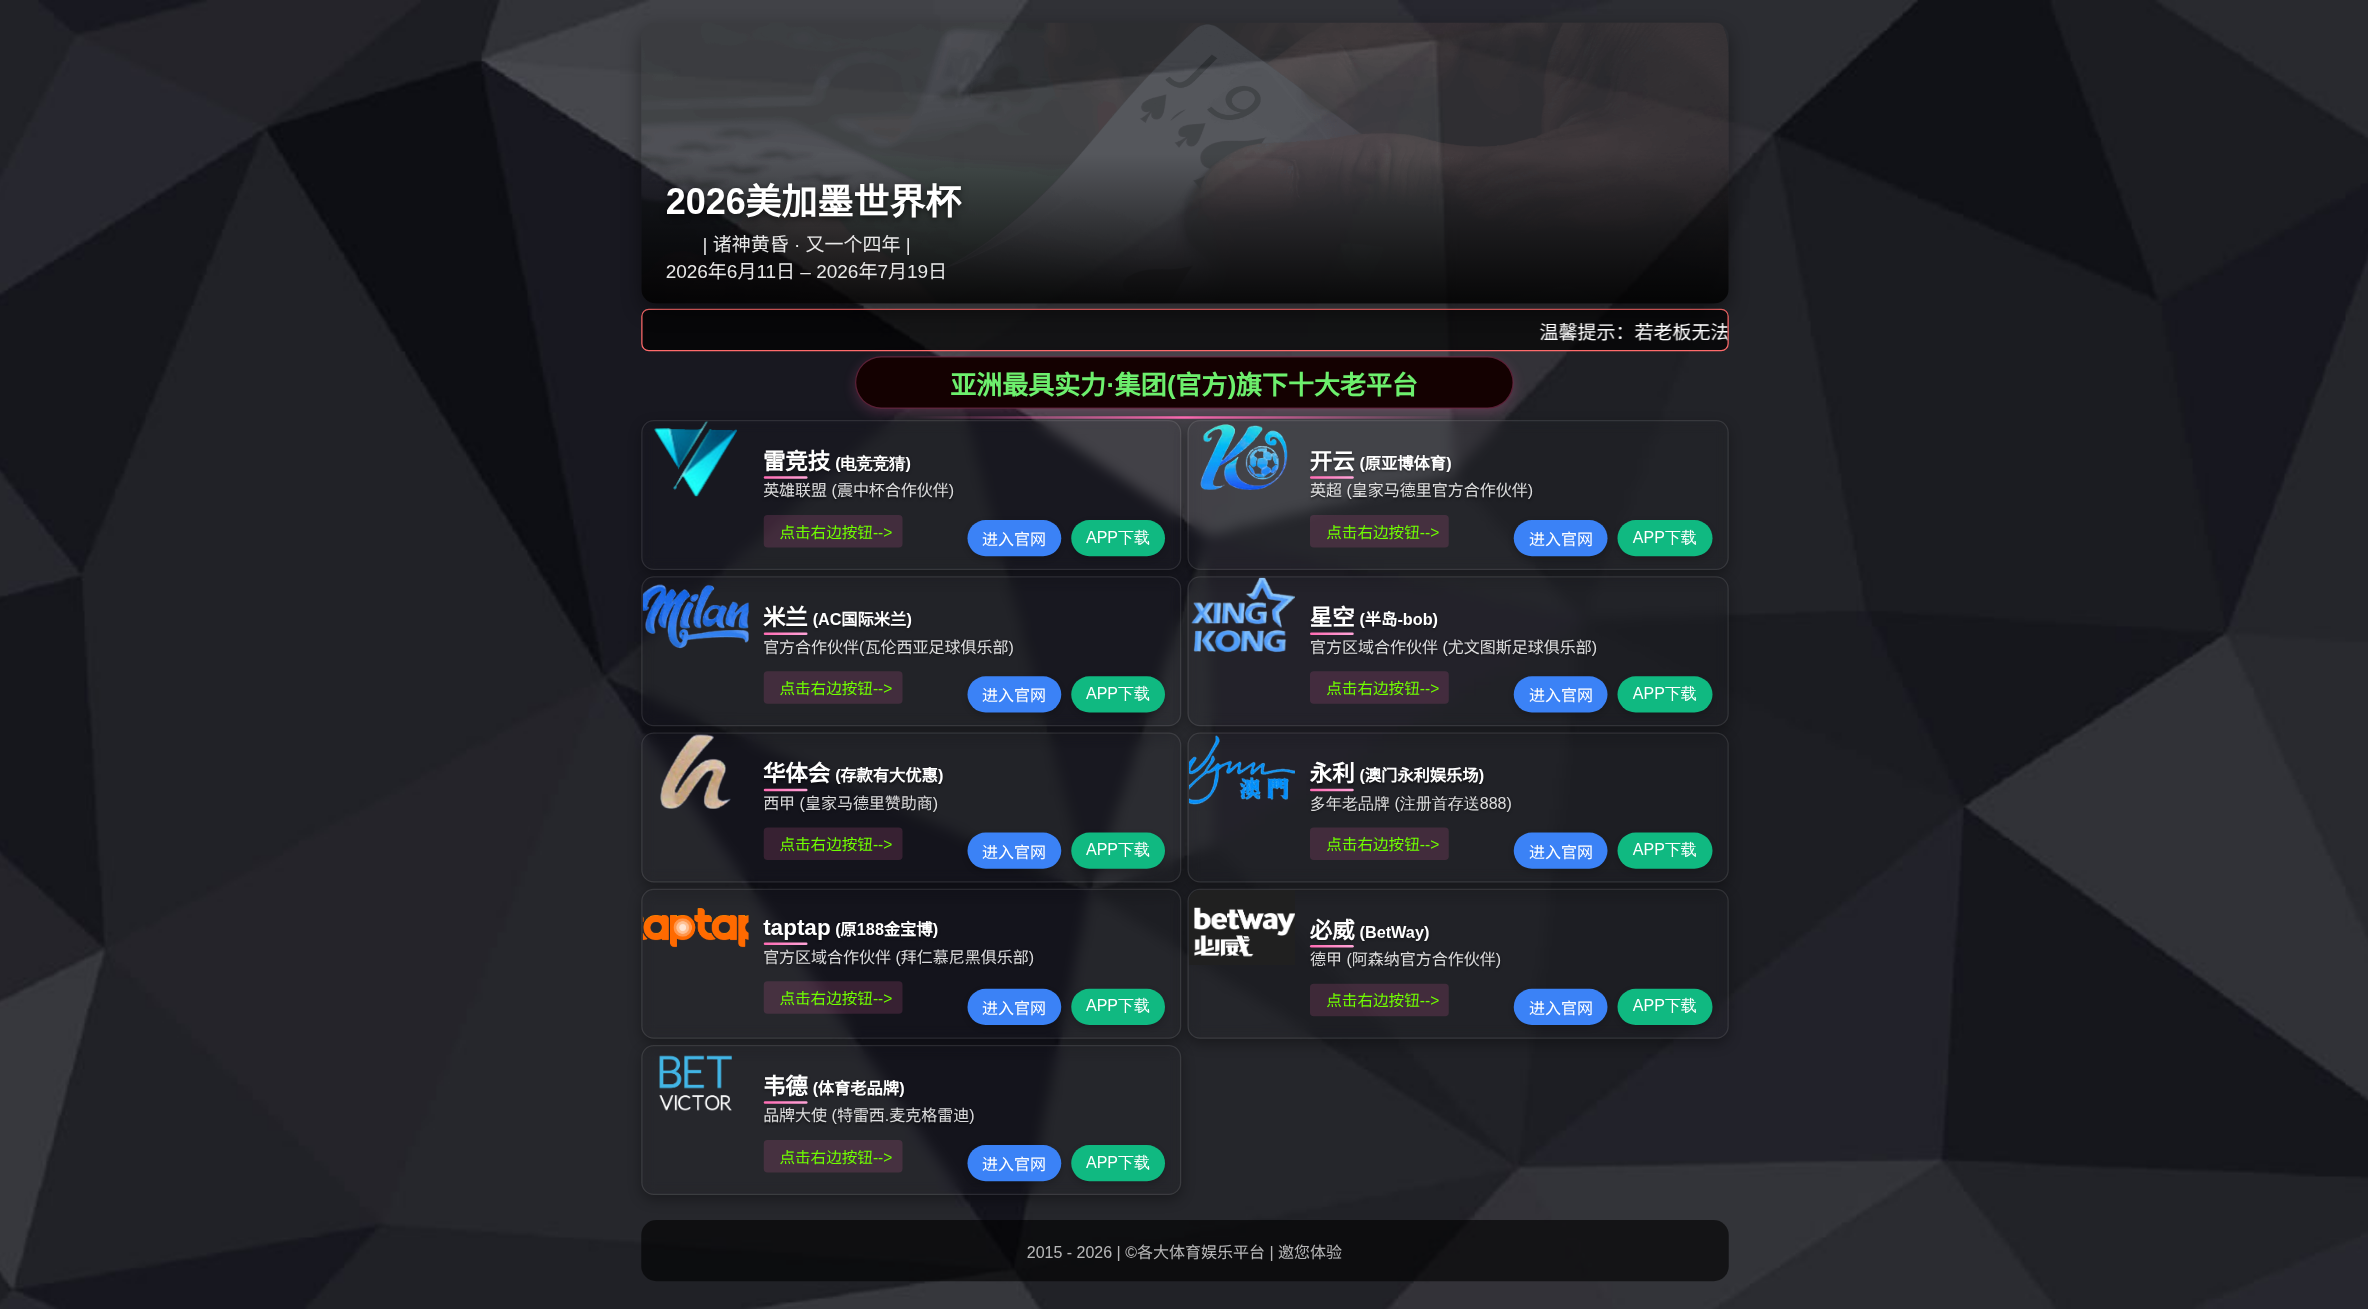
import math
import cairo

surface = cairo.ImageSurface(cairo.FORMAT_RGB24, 2368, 1309)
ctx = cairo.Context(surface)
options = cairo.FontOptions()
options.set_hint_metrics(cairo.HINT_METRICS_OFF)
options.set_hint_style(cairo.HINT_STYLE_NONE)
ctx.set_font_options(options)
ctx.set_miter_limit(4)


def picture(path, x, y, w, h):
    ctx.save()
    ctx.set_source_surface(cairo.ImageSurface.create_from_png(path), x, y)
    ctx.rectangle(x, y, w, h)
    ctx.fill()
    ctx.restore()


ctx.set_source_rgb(1, 1, 1)
ctx.paint()
picture("img1.png", 0, 0, 2368, 1309)
surface.write_to_png("page.png")
